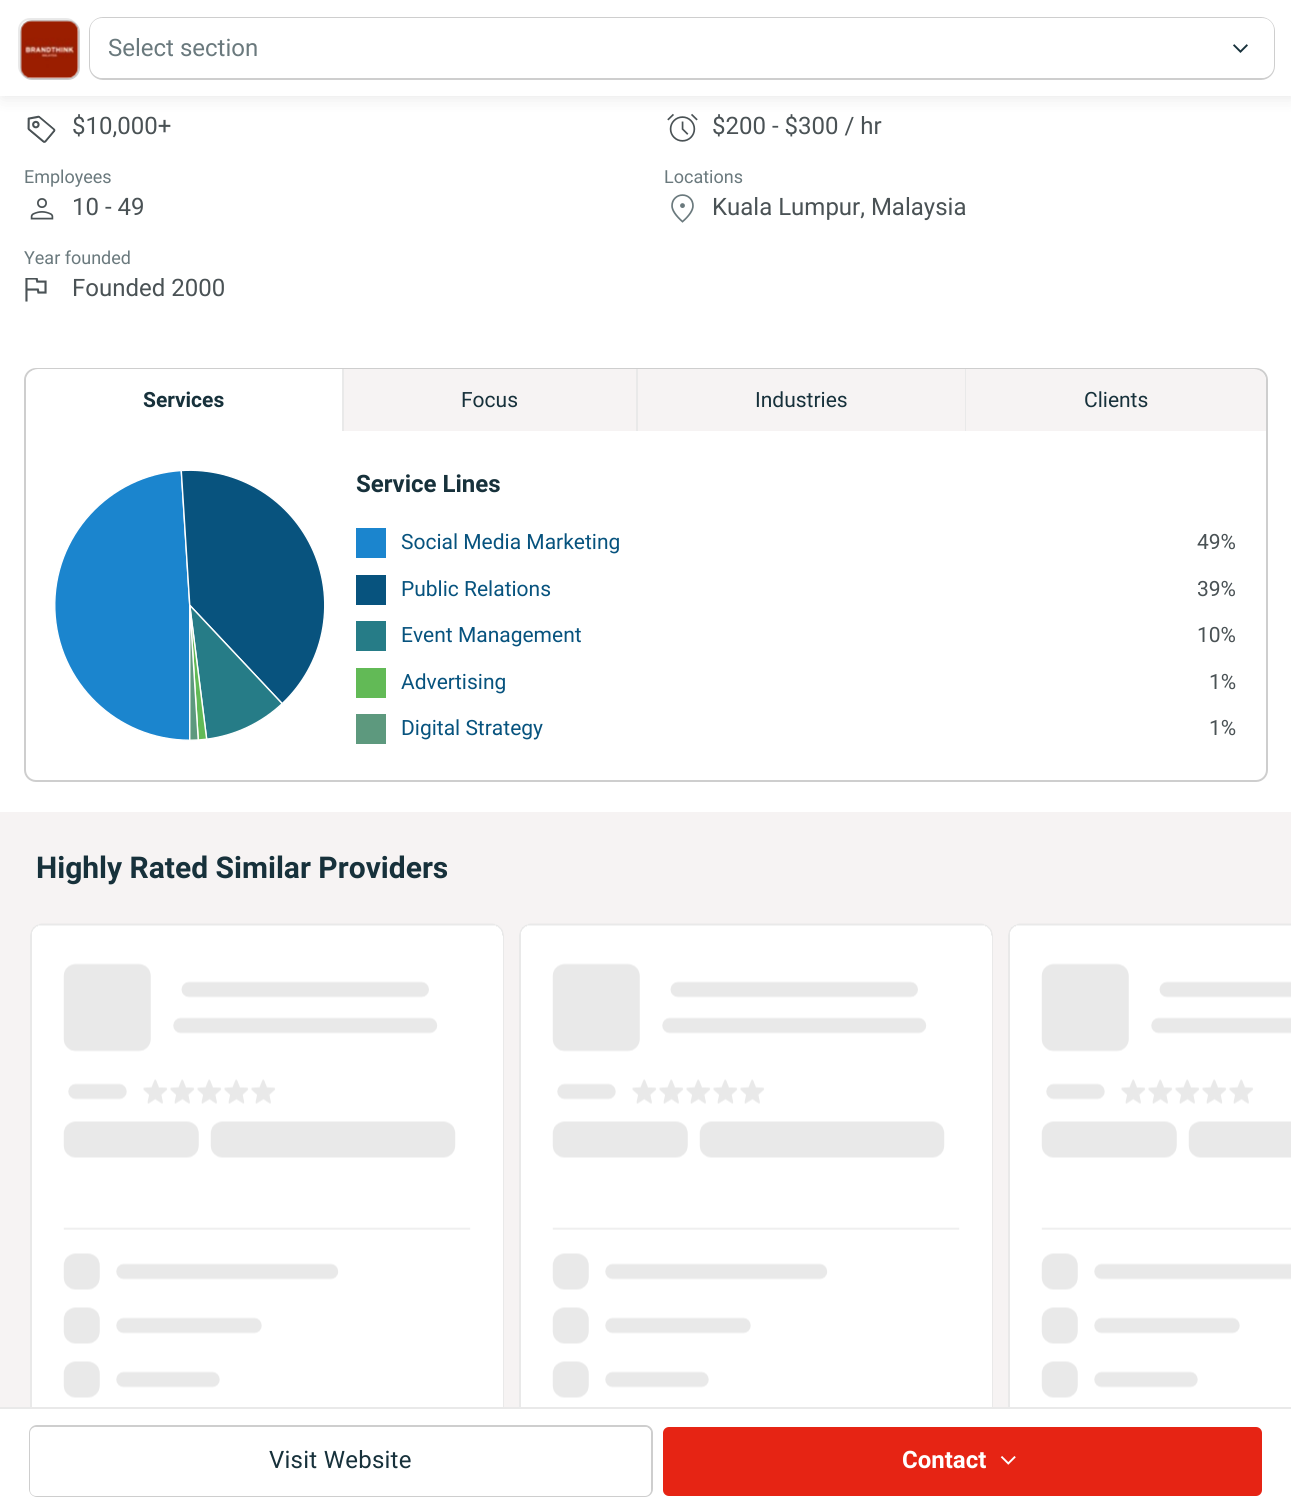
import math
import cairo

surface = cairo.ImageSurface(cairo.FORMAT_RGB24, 1291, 1512)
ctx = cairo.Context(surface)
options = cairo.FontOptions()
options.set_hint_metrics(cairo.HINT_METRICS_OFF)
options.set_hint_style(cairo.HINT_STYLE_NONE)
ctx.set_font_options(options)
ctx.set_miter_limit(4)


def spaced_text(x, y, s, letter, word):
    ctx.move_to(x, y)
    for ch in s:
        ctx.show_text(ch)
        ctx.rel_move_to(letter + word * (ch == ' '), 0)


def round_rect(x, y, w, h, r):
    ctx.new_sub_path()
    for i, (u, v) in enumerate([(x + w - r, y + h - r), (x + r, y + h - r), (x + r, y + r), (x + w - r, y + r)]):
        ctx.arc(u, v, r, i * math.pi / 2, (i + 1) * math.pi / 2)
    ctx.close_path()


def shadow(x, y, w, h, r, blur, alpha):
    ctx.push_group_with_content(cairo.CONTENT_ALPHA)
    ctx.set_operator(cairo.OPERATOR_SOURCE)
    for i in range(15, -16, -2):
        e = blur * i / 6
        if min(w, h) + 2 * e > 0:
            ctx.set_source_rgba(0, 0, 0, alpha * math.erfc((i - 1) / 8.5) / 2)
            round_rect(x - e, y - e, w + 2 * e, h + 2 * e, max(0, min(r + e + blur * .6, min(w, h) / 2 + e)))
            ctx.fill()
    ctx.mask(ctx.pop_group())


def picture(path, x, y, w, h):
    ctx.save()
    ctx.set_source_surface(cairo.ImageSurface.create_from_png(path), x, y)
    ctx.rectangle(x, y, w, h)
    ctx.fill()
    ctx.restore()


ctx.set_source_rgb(1, 1, 1)
ctx.paint()
picture("img3.png", 27, 115, 29, 28)
picture("img4.png", 667, 113, 31, 29)
ctx.set_source_rgb(0.09, 0.09, 0.09)
shadow(2, 2, 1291, 96, 0, 7.5, 0.1)
ctx.set_source_rgb(1, 1, 1)
ctx.rectangle(0, 0, 1291, 96)
ctx.fill()
round_rect(19, 19, 58, 58, 11)
ctx.set_source_rgb(0.914, 0.914, 0.914)
ctx.stroke()
ctx.set_source_rgb(1, 1, 1)
round_rect(21, 21, 58, 58, 11)
ctx.fill_preserve()
ctx.set_source_rgb(0.808, 0.808, 0.808)
ctx.stroke()
picture("img1.png", 20, 20, 59, 59)
round_rect(90, 18, 1184, 61, 13)
ctx.stroke()
ctx.set_source_rgb(1, 1, 1)
round_rect(90, 18, 1184, 60, 12)
ctx.fill()
ctx.select_font_face("Roboto")
ctx.set_font_size(24)
ctx.set_source_rgb(0.416, 0.475, 0.49)
ctx.move_to(108, 56)
ctx.show_text("Select section")
picture("img2.png", 1233, 44, 15, 9)
ctx.set_source_rgb(0.29, 0.322, 0.333)
ctx.move_to(72, 134)
ctx.show_text("$10,000+")
ctx.move_to(712, 134)
ctx.show_text("$200 - $300 / hr")
ctx.set_font_size(18)
ctx.set_source_rgb(0.416, 0.475, 0.49)
ctx.move_to(24, 183)
ctx.show_text("Employees")
picture("img5.png", 30, 198, 24, 22)
ctx.set_font_size(24)
ctx.set_source_rgb(0.29, 0.322, 0.333)
ctx.move_to(72, 215)
ctx.show_text("10 - 49")
ctx.set_font_size(18)
ctx.set_source_rgb(0.416, 0.475, 0.49)
ctx.move_to(664, 183)
ctx.show_text("Locations")
picture("img6.png", 671, 194, 23, 29)
ctx.set_font_size(24)
ctx.set_source_rgb(0.29, 0.322, 0.333)
ctx.move_to(712, 215)
ctx.show_text("Kuala Lumpur, Malaysia")
ctx.set_font_size(18)
ctx.set_source_rgb(0.416, 0.475, 0.49)
ctx.move_to(24, 264)
ctx.show_text("Year founded")
picture("img7.png", 25, 278, 22, 24)
ctx.set_font_size(24)
ctx.set_source_rgb(0.29, 0.322, 0.333)
ctx.move_to(72, 296)
ctx.show_text("Founded 2000")
round_rect(25, 369, 1242, 412, 11)
ctx.set_source_rgb(0.808, 0.808, 0.808)
ctx.stroke()
ctx.set_source_rgb(1, 1, 1)
ctx.new_path()
ctx.move_to(38, 369)
ctx.line_to(342, 369)
ctx.line_to(342, 431)
ctx.line_to(26, 431)
ctx.line_to(26, 381)
ctx.curve_to(26, 374.5, 31.5, 369, 38, 369)
ctx.close_path()
ctx.fill()
ctx.select_font_face("Roboto", cairo.FONT_SLANT_NORMAL, cairo.FONT_WEIGHT_BOLD)
ctx.set_font_size(21)
ctx.set_source_rgb(0.09, 0.192, 0.231)
ctx.move_to(143, 407)
ctx.show_text("Services")
ctx.set_source_rgb(0.914, 0.914, 0.914)
ctx.rectangle(342, 369, 2, 62)
ctx.fill()
ctx.set_source_rgb(0.961, 0.953, 0.953)
ctx.rectangle(344, 369, 292, 62)
ctx.fill()
ctx.select_font_face("Roboto")
ctx.set_source_rgb(0.09, 0.192, 0.231)
ctx.move_to(461, 407)
ctx.show_text("Focus")
ctx.set_source_rgb(0.914, 0.914, 0.914)
ctx.rectangle(636, 369, 2, 62)
ctx.fill()
ctx.set_source_rgb(0.961, 0.953, 0.953)
ctx.rectangle(638, 369, 327, 62)
ctx.fill()
ctx.set_source_rgb(0.09, 0.192, 0.231)
ctx.move_to(755, 407)
ctx.show_text("Industries")
ctx.set_source_rgb(0.914, 0.914, 0.914)
ctx.rectangle(965, 369, 1, 62)
ctx.fill()
ctx.set_source_rgb(0.961, 0.953, 0.953)
ctx.new_path()
ctx.move_to(966, 369)
ctx.line_to(1254, 369)
ctx.curve_to(1260.5, 369, 1266, 374.5, 1266, 381)
ctx.line_to(1266, 431)
ctx.line_to(966, 431)
ctx.close_path()
ctx.fill()
ctx.set_source_rgb(0.09, 0.192, 0.231)
ctx.move_to(1084, 407)
ctx.show_text("Clients")
picture("img8.png", 54, 470, 271, 271)
ctx.select_font_face("Roboto", cairo.FONT_SLANT_NORMAL, cairo.FONT_WEIGHT_BOLD)
ctx.set_font_size(24)
ctx.move_to(356, 492)
ctx.show_text("Service Lines")
ctx.set_source_rgb(0.106, 0.522, 0.808)
ctx.rectangle(356, 528, 30, 30)
ctx.fill()
ctx.select_font_face("Roboto")
ctx.set_font_size(21)
ctx.set_source_rgb(0.031, 0.325, 0.494)
ctx.move_to(401, 549)
ctx.show_text("Social Media Marketing")
ctx.set_source_rgb(0.29, 0.322, 0.333)
ctx.move_to(1197, 549)
ctx.show_text("49%")
ctx.set_source_rgb(0.031, 0.325, 0.494)
ctx.rectangle(356, 575, 30, 30)
ctx.fill()
ctx.move_to(401, 596)
ctx.show_text("Public Relations")
ctx.set_source_rgb(0.29, 0.322, 0.333)
ctx.move_to(1197, 596)
ctx.show_text("39%")
ctx.set_source_rgb(0.149, 0.486, 0.529)
ctx.rectangle(356, 621, 30, 30)
ctx.fill()
ctx.set_source_rgb(0.031, 0.325, 0.494)
ctx.move_to(401, 642)
ctx.show_text("Event Management")
ctx.set_source_rgb(0.29, 0.322, 0.333)
ctx.move_to(1197, 642)
ctx.show_text("10%")
ctx.set_source_rgb(0.384, 0.729, 0.337)
ctx.rectangle(356, 668, 30, 30)
ctx.fill()
ctx.set_source_rgb(0.031, 0.325, 0.494)
ctx.move_to(401, 689)
ctx.show_text("Advertising")
ctx.set_source_rgb(0.29, 0.322, 0.333)
ctx.move_to(1209, 689)
ctx.show_text("1%")
ctx.set_source_rgb(0.365, 0.6, 0.494)
ctx.rectangle(356, 714, 30, 30)
ctx.fill()
ctx.set_source_rgb(0.031, 0.325, 0.494)
ctx.move_to(401, 735)
ctx.show_text("Digital Strategy")
ctx.set_source_rgb(0.29, 0.322, 0.333)
ctx.move_to(1209, 735)
ctx.show_text("1%")
ctx.set_source_rgb(0.961, 0.953, 0.953)
ctx.rectangle(0, 812, 1291, 595)
ctx.fill()
ctx.select_font_face("Roboto", cairo.FONT_SLANT_NORMAL, cairo.FONT_WEIGHT_BOLD)
ctx.set_font_size(30)
ctx.set_source_rgb(0.09, 0.192, 0.231)
ctx.move_to(36, 878)
ctx.show_text("Highly Rated Similar Providers")
picture("img9.png", 30, 923, 474, 484)
picture("img9.png", 519, 923, 474, 484)
picture("img10.png", 1008, 923, 283, 484)
ctx.set_source_rgb(0.914, 0.914, 0.914)
ctx.rectangle(0, 1407, 1291, 2)
ctx.fill()
round_rect(30, 1426, 622, 70, 7)
ctx.set_source_rgb(0.808, 0.808, 0.808)
ctx.stroke()
ctx.set_source_rgb(1, 1, 1)
round_rect(30, 1427, 621, 69, 6)
ctx.fill()
ctx.select_font_face("Roboto")
ctx.set_font_size(24)
ctx.set_source_rgb(0.09, 0.192, 0.231)
spaced_text(269, 1468, "Visit Website", 0.25, 0)
ctx.set_source_rgb(0.902, 0.141, 0.082)
round_rect(663, 1427, 599, 69, 6)
ctx.fill()
ctx.select_font_face("Roboto", cairo.FONT_SLANT_NORMAL, cairo.FONT_WEIGHT_BOLD)
ctx.set_source_rgb(1, 1, 1)
ctx.move_to(902, 1468)
ctx.show_text("Contact")
picture("img11.png", 1000, 1456, 16, 9)
surface.write_to_png("page.png")
